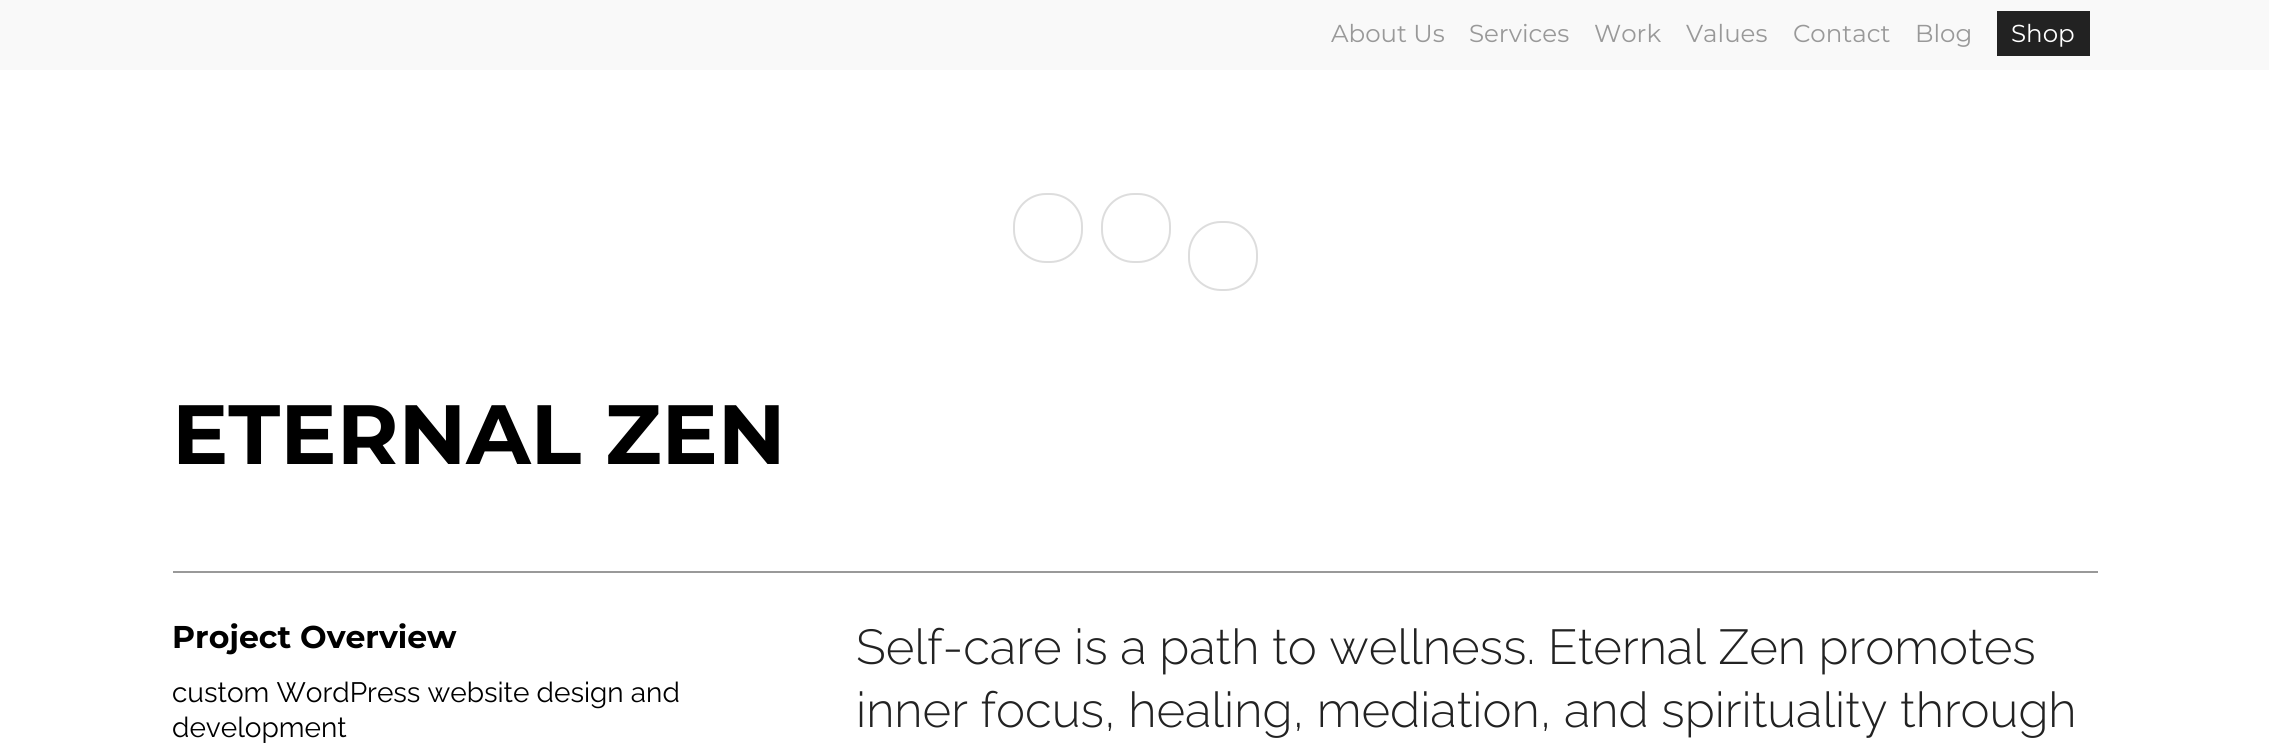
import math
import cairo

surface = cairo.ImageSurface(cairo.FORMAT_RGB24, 2269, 744)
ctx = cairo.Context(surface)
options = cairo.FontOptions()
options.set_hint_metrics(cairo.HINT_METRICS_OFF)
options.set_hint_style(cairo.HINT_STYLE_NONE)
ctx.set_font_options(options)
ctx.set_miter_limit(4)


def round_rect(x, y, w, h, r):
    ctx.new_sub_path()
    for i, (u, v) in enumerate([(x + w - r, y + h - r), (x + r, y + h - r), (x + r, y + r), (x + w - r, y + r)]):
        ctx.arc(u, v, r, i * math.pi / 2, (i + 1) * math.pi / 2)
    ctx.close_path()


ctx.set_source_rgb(1, 1, 1)
ctx.paint()
ctx.set_source_rgb(0.976, 0.976, 0.976)
ctx.rectangle(0, 0, 2269, 70)
ctx.fill()
ctx.select_font_face("Montserrat")
ctx.set_font_size(24.5)
ctx.set_source_rgb(0.6, 0.6, 0.6)
ctx.move_to(1331, 42)
ctx.show_text("About Us")
ctx.move_to(1469, 42)
ctx.show_text("Services")
ctx.move_to(1594, 42)
ctx.show_text("Work")
ctx.move_to(1686, 42)
ctx.show_text("Values")
ctx.move_to(1793, 42)
ctx.show_text("Contact")
ctx.move_to(1915, 42)
ctx.show_text("Blog")
ctx.set_source_rgb(0.133, 0.133, 0.133)
ctx.rectangle(1997, 11, 93, 45)
ctx.fill()
ctx.set_source_rgb(1, 1, 1)
ctx.move_to(2011, 42)
ctx.show_text("Shop")
round_rect(1014, 194, 68, 68, 32)
ctx.set_source_rgb(0.867, 0.867, 0.867)
ctx.stroke()
round_rect(1102, 194, 68, 68, 32)
ctx.stroke()
round_rect(1189, 222, 68, 68, 32)
ctx.stroke()
ctx.select_font_face("Montserrat", cairo.FONT_SLANT_NORMAL, cairo.FONT_WEIGHT_BOLD)
ctx.set_font_size(84)
ctx.set_source_rgb(0, 0, 0)
ctx.move_to(172, 464)
ctx.show_text("ETERNAL ZEN")
ctx.set_source_rgb(0.6, 0.6, 0.6)
ctx.rectangle(173, 571, 1925, 2)
ctx.fill()
ctx.set_font_size(31.5)
ctx.set_source_rgb(0, 0, 0)
ctx.move_to(172, 648)
ctx.show_text("Project Overview")
ctx.select_font_face("Raleway")
ctx.set_font_size(28)
ctx.move_to(172, 702)
ctx.show_text("custom WordPress website design and")
ctx.move_to(172, 737)
ctx.show_text("development")
ctx.select_font_face("Raleway Light")
ctx.set_font_size(49)
ctx.set_source_rgb(0.133, 0.133, 0.133)
ctx.move_to(856, 664)
ctx.show_text("Self-care is a path to wellness. Eternal Zen promotes")
ctx.move_to(856, 727)
ctx.show_text("inner focus, healing, mediation, and spirituality through")
surface.write_to_png("page.png")
